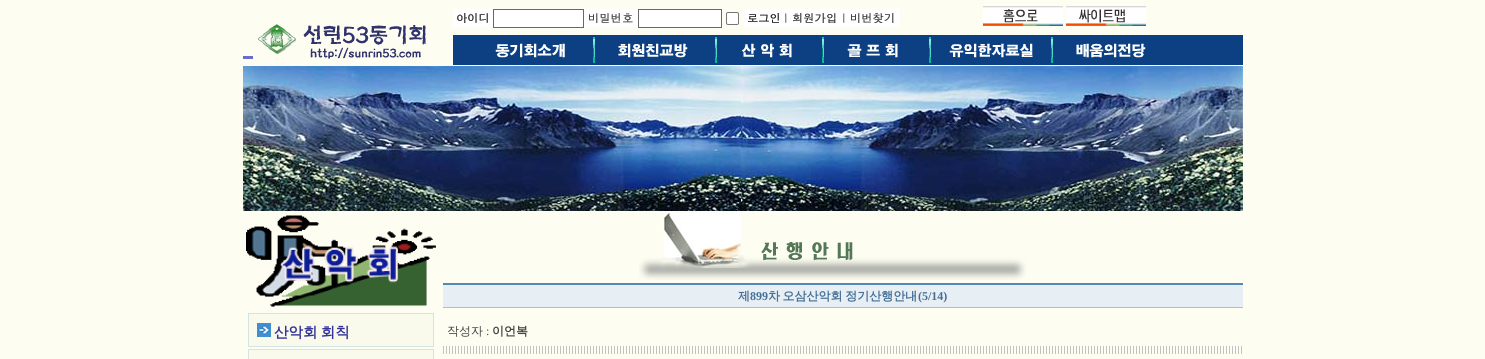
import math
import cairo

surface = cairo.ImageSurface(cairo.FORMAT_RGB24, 1485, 359)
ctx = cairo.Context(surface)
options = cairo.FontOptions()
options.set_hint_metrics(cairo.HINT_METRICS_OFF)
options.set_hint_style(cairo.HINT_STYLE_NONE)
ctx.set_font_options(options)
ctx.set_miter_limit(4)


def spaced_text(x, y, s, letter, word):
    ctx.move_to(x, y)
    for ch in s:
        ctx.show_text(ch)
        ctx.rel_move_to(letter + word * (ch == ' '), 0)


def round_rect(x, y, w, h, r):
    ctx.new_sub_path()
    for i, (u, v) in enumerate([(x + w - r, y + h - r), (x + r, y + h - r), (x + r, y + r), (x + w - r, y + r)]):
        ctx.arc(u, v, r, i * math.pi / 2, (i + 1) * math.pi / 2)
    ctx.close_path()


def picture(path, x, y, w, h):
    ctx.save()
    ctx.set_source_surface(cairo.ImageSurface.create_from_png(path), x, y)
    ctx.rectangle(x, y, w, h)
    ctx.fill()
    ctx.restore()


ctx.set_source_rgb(0.992, 0.992, 0.949)
ctx.paint()
picture("img1.png", 453, 9, 40, 18)
ctx.set_source_rgb(1, 1, 1)
ctx.rectangle(493.5, 9.5, 90, 18)
ctx.fill_preserve()
ctx.set_source_rgb(0.408, 0.408, 0.408)
ctx.set_line_width(1)
ctx.stroke()
picture("img2.png", 584, 9, 54, 18)
ctx.set_source_rgb(1, 1, 1)
ctx.rectangle(638.5, 9.5, 83, 18)
ctx.fill_preserve()
ctx.set_source_rgb(0.408, 0.408, 0.408)
ctx.stroke()
ctx.set_source_rgb(1, 1, 1)
round_rect(726.5, 12.5, 12, 12, 1.5)
ctx.fill_preserve()
ctx.set_source_rgb(0.463, 0.463, 0.463)
ctx.stroke()
picture("img3.png", 744, 9, 40, 18)
picture("img4.png", 784, 9, 4, 18)
picture("img5.png", 788, 9, 54, 18)
picture("img4.png", 842, 9, 4, 18)
picture("img6.png", 846, 9, 54, 18)
picture("img7.png", 983, 6, 80, 20)
picture("img8.png", 1066, 6, 80, 20)
ctx.set_source_rgb(0.412, 0.424, 0.827)
ctx.rectangle(243, 56, 10, 3)
ctx.fill()
picture("img9.png", 253, 24, 200, 35)
ctx.set_source_rgb(0.047, 0.251, 0.514)
ctx.rectangle(453, 35, 790, 30)
ctx.fill()
picture("img10.png", 495, 43, 70, 15)
picture("img11.png", 593, 37, 2, 26)
picture("img12.png", 618, 43, 70, 15)
picture("img11.png", 715, 37, 2, 26)
picture("img13.png", 741, 43, 51, 15)
picture("img11.png", 822, 37, 2, 26)
picture("img14.png", 847, 43, 51, 15)
picture("img11.png", 929, 37, 2, 26)
picture("img15.png", 949, 43, 84, 15)
picture("img11.png", 1051, 37, 2, 26)
picture("img16.png", 1076, 43, 70, 15)
picture("img17.png", 243, 66, 1000, 145)
picture("img18.png", 246, 215, 190, 92)
ctx.set_source_rgb(0.98, 0.98, 0.925)
ctx.rectangle(248.5, 313.5, 185, 33)
ctx.fill_preserve()
ctx.set_source_rgb(0.827, 0.894, 0.894)
ctx.stroke()
picture("img19.png", 257, 323, 14, 14)
ctx.select_font_face("WenQuanYi Zen Hei", cairo.FONT_SLANT_NORMAL, cairo.FONT_WEIGHT_BOLD)
ctx.set_font_size(14.5)
ctx.set_source_rgb(0.2, 0.2, 0.6)
spaced_text(274, 337, "산악회 회칙", 0, -1)
ctx.set_source_rgb(0.98, 0.98, 0.925)
ctx.rectangle(248.5, 349.5, 185, 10)
ctx.fill_preserve()
ctx.set_source_rgb(0.827, 0.894, 0.894)
ctx.stroke()
picture("img20.png", 639, 212, 387, 68)
picture("img21.png", 443, 283, 800, 25)
ctx.set_font_size(12)
ctx.set_source_rgb(0.271, 0.435, 0.588)
ctx.move_to(738, 300)
ctx.show_text("제")
ctx.select_font_face("Liberation Serif", cairo.FONT_SLANT_NORMAL, cairo.FONT_WEIGHT_BOLD)
ctx.move_to(750, 300)
ctx.show_text("899")
ctx.select_font_face("WenQuanYi Zen Hei", cairo.FONT_SLANT_NORMAL, cairo.FONT_WEIGHT_BOLD)
spaced_text(768, 300, "차 오삼산악회 정기산행안내", 0, -1)
ctx.select_font_face("Liberation Serif", cairo.FONT_SLANT_NORMAL, cairo.FONT_WEIGHT_BOLD)
ctx.move_to(918, 300)
ctx.show_text("(5/14)")
ctx.select_font_face("WenQuanYi Zen Hei Medium")
ctx.set_source_rgb(0.267, 0.267, 0.267)
ctx.move_to(447, 335)
ctx.show_text("작성자")
ctx.select_font_face("Liberation Serif")
ctx.move_to(486, 335)
ctx.show_text(":")
ctx.select_font_face("WenQuanYi Zen Hei", cairo.FONT_SLANT_NORMAL, cairo.FONT_WEIGHT_BOLD)
ctx.move_to(492, 335)
ctx.show_text("이언복")
picture("img22.png", 443, 346, 799, 8)
surface.write_to_png("page.png")
